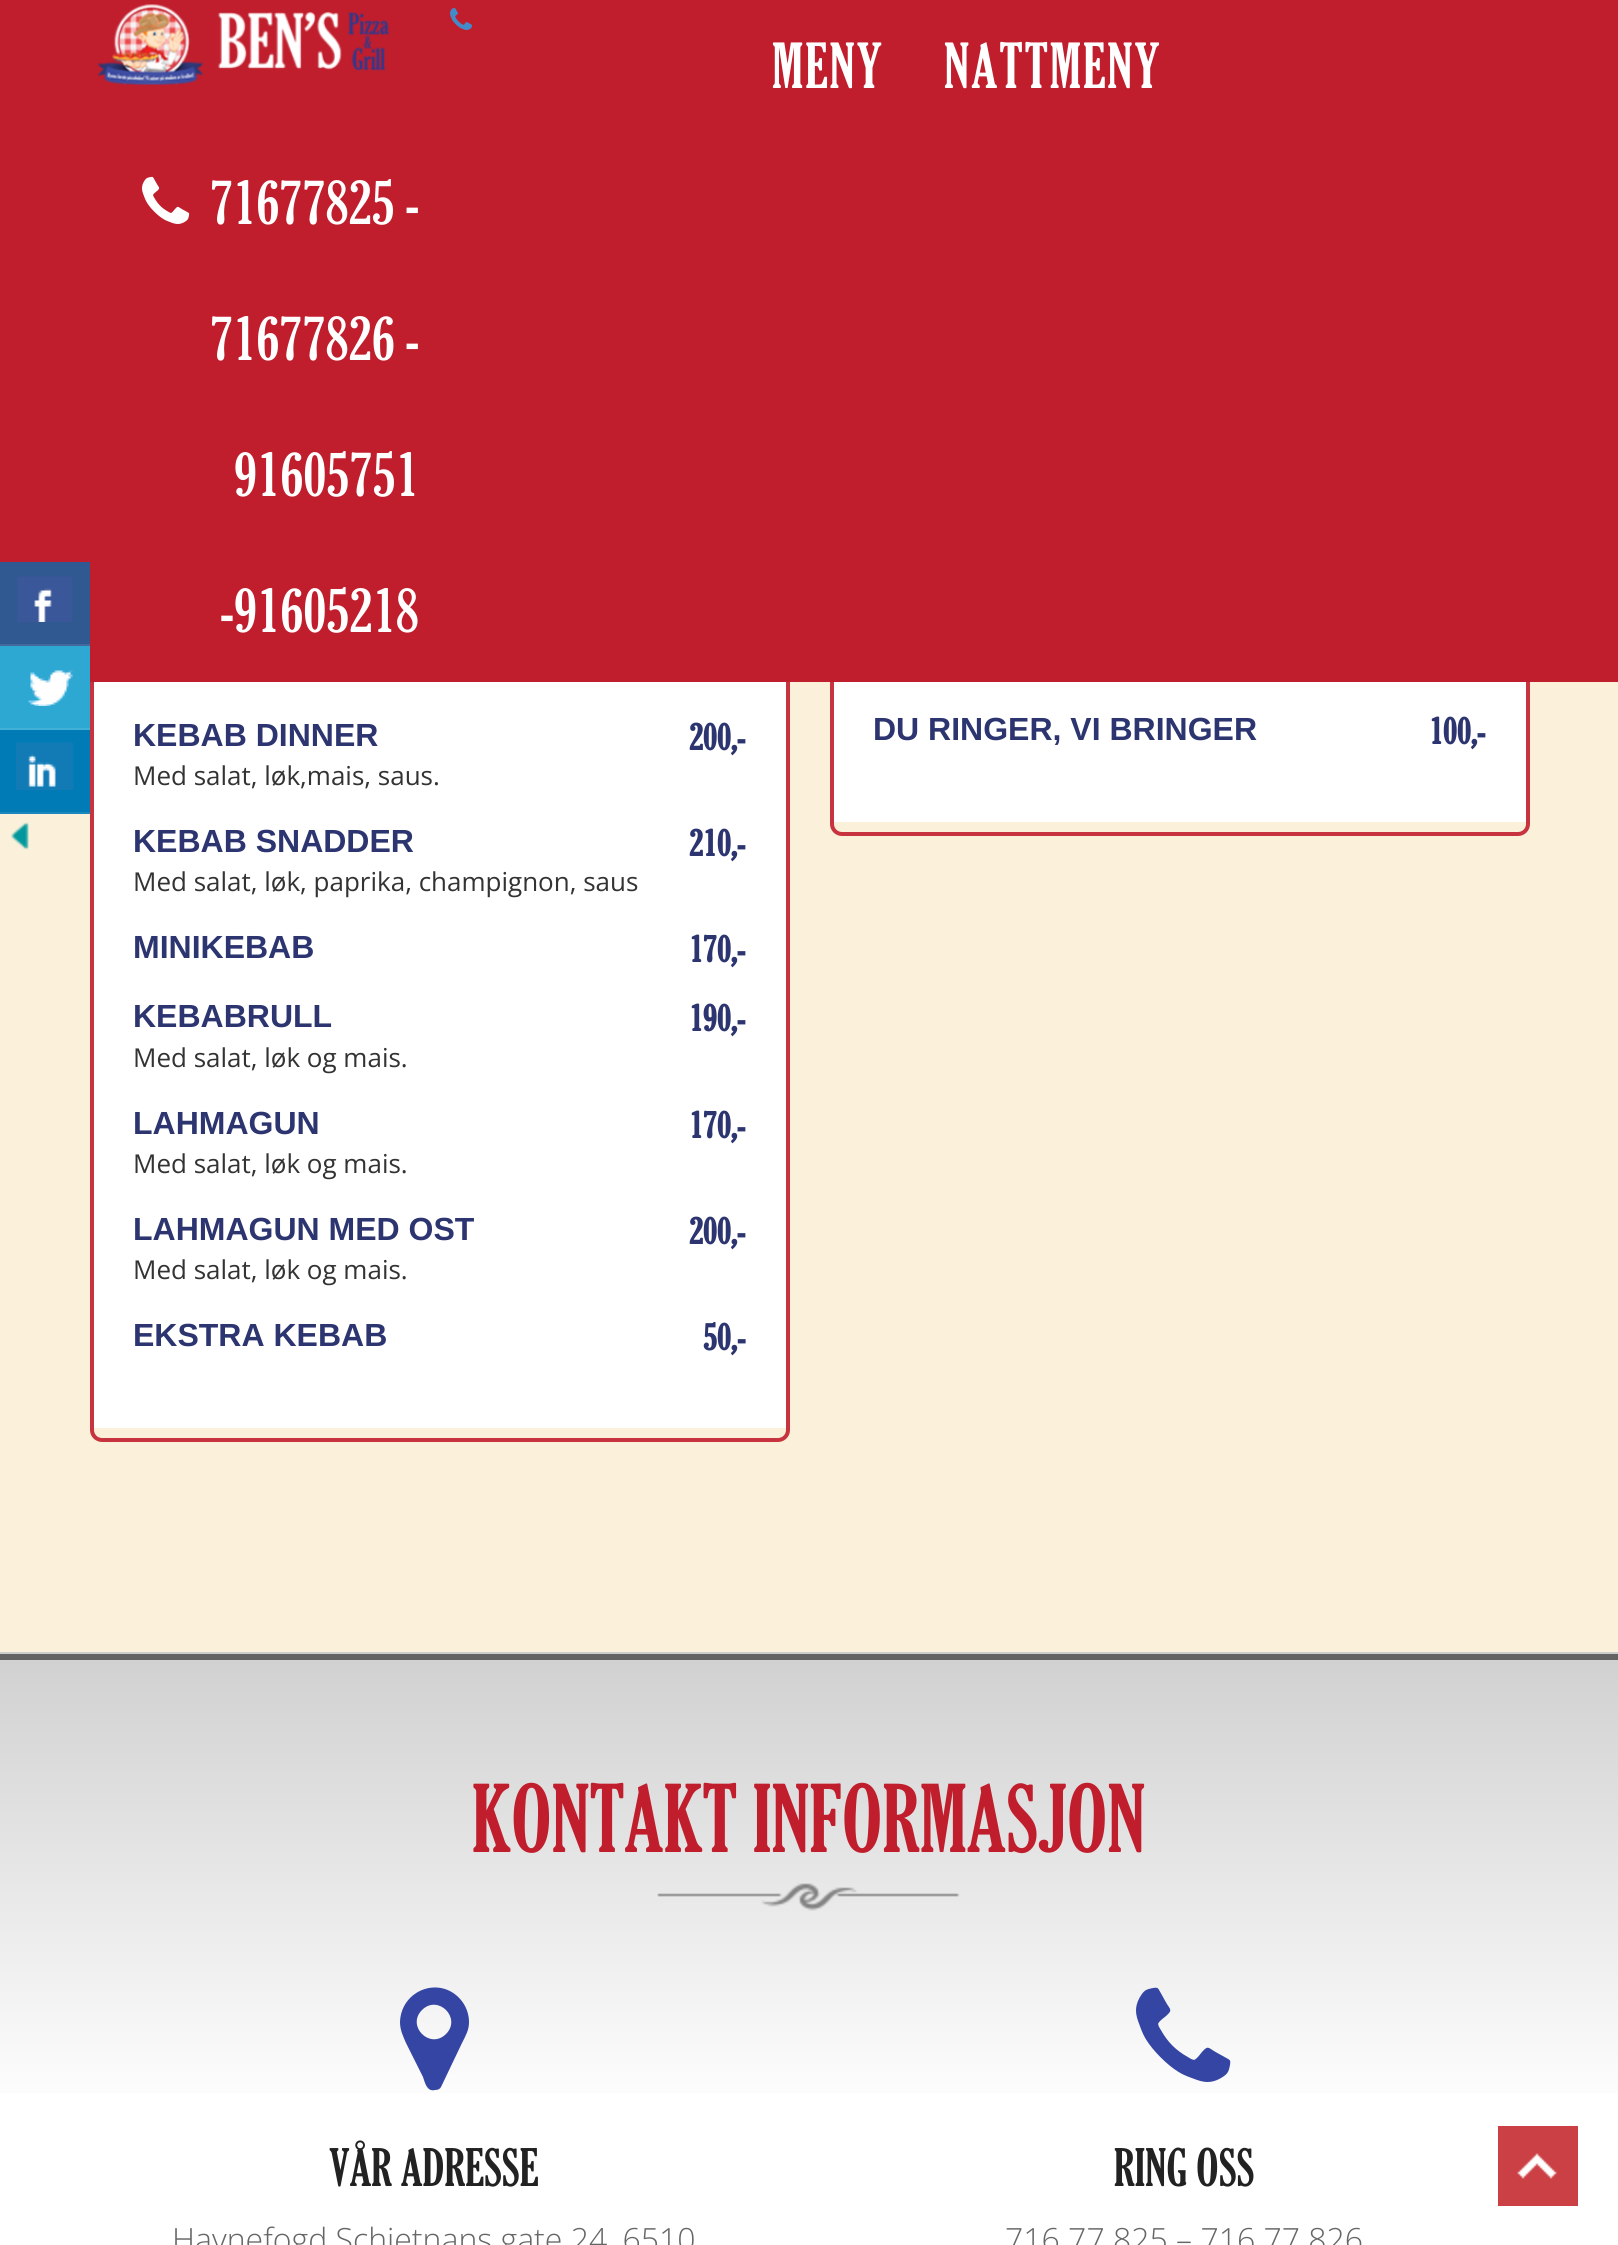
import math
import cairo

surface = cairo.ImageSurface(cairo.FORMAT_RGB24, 1618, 2245)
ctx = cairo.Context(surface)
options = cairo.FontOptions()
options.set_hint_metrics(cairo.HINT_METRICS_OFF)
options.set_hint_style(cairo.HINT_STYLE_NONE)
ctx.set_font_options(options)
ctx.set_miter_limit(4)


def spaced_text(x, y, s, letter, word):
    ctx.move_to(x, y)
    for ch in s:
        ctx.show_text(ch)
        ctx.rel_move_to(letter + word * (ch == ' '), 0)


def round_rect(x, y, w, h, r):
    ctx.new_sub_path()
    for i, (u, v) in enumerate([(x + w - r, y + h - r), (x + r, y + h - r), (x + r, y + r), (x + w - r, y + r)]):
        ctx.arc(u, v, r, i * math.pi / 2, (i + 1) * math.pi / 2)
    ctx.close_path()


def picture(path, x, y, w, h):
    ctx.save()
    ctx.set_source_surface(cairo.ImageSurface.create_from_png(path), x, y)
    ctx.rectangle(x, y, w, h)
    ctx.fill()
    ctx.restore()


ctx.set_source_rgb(1, 1, 1)
ctx.paint()
ctx.set_source_rgb(0.984, 0.945, 0.855)
ctx.rectangle(0, 682, 1618, 970)
ctx.fill()
round_rect(92, 442, 696, 998, 10)
ctx.set_source_rgb(0.78, 0.2, 0.243)
ctx.set_line_width(4)
ctx.stroke()
round_rect(832, 542, 696, 292, 10)
ctx.stroke()
ctx.set_source_rgb(0.757, 0.118, 0.176)
ctx.rectangle(0, 0, 1618, 682)
ctx.fill()
picture("img1.png", 97, 4, 293, 81)
picture("img2.png", 450, 8, 22, 22)
ctx.select_font_face("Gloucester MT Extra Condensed")
ctx.set_font_size(60)
ctx.set_source_rgb(1, 1, 1)
spaced_text(772, 88, "MENY", 2, 0)
spaced_text(944, 88, "NATTMENY", 2, 0)
picture("img3.png", 142, 176, 48, 48)
ctx.move_to(210, 224)
ctx.show_text("71677825 -")
ctx.move_to(210, 360)
ctx.show_text("71677826 -")
ctx.move_to(234, 496)
ctx.show_text("91605751")
ctx.move_to(220, 632)
ctx.show_text("-91605218")
ctx.set_source_rgb(0.188, 0.345, 0.569)
ctx.rectangle(0, 562, 90, 82)
ctx.fill()
ctx.set_source_rgb(0.271, 0.412, 0.612)
ctx.rectangle(0, 644, 90, 2)
ctx.fill()
picture("img4.png", 17, 576, 56, 46)
ctx.set_source_rgb(0.173, 0.659, 0.824)
ctx.rectangle(0, 646, 90, 82)
ctx.fill()
ctx.set_source_rgb(0.255, 0.694, 0.843)
ctx.rectangle(0, 728, 90, 2)
ctx.fill()
picture("img5.png", 28, 670, 45, 36)
ctx.set_source_rgb(0, 0.482, 0.714)
ctx.rectangle(0, 730, 90, 82)
ctx.fill()
ctx.set_source_rgb(0.102, 0.533, 0.741)
ctx.rectangle(0, 812, 90, 2)
ctx.fill()
picture("img6.png", 16, 742, 58, 48)
picture("img7.png", 11, 822, 18, 28)
ctx.set_source_rgb(0.8, 0.8, 0.8)
ctx.rectangle(0, 1652, 1618, 2)
ctx.fill()
ctx.set_source_rgb(1, 1, 1)
ctx.rectangle(94, 682, 692, 746)
ctx.fill()
ctx.select_font_face("Liberation Sans", cairo.FONT_SLANT_NORMAL, cairo.FONT_WEIGHT_BOLD)
ctx.set_font_size(32)
ctx.set_source_rgb(0.173, 0.208, 0.439)
ctx.move_to(133, 746)
ctx.show_text("KEBAB DINNER")
ctx.select_font_face("Gloucester MT Extra Condensed", cairo.FONT_SLANT_NORMAL, cairo.FONT_WEIGHT_BOLD)
ctx.set_font_size(36)
ctx.move_to(689, 750)
ctx.show_text("200,-")
ctx.select_font_face("Open Sans")
ctx.set_font_size(26)
ctx.set_source_rgb(0.2, 0.2, 0.2)
ctx.move_to(133, 785)
ctx.show_text("Med salat, løk,mais, saus.")
ctx.select_font_face("Liberation Sans", cairo.FONT_SLANT_NORMAL, cairo.FONT_WEIGHT_BOLD)
ctx.set_font_size(32)
ctx.set_source_rgb(0.173, 0.208, 0.439)
ctx.move_to(133, 852)
ctx.show_text("KEBAB SNADDER")
ctx.select_font_face("Gloucester MT Extra Condensed", cairo.FONT_SLANT_NORMAL, cairo.FONT_WEIGHT_BOLD)
ctx.set_font_size(36)
ctx.move_to(689, 856)
ctx.show_text("210,-")
ctx.select_font_face("Open Sans")
ctx.set_font_size(26)
ctx.set_source_rgb(0.2, 0.2, 0.2)
ctx.move_to(133, 891)
ctx.show_text("Med salat, løk, paprika, champignon, saus")
ctx.select_font_face("Liberation Sans", cairo.FONT_SLANT_NORMAL, cairo.FONT_WEIGHT_BOLD)
ctx.set_font_size(32)
ctx.set_source_rgb(0.173, 0.208, 0.439)
ctx.move_to(133, 958)
ctx.show_text("MINIKEBAB")
ctx.select_font_face("Gloucester MT Extra Condensed", cairo.FONT_SLANT_NORMAL, cairo.FONT_WEIGHT_BOLD)
ctx.set_font_size(36)
ctx.move_to(689, 962)
ctx.show_text("170,-")
ctx.select_font_face("Liberation Sans", cairo.FONT_SLANT_NORMAL, cairo.FONT_WEIGHT_BOLD)
ctx.set_font_size(32)
ctx.move_to(133, 1027)
ctx.show_text("KEBABRULL")
ctx.select_font_face("Gloucester MT Extra Condensed", cairo.FONT_SLANT_NORMAL, cairo.FONT_WEIGHT_BOLD)
ctx.set_font_size(36)
ctx.move_to(689, 1031)
ctx.show_text("190,-")
ctx.select_font_face("Open Sans")
ctx.set_font_size(26)
ctx.set_source_rgb(0.2, 0.2, 0.2)
ctx.move_to(133, 1067)
ctx.show_text("Med salat, løk og mais.")
ctx.select_font_face("Liberation Sans", cairo.FONT_SLANT_NORMAL, cairo.FONT_WEIGHT_BOLD)
ctx.set_font_size(32)
ctx.set_source_rgb(0.173, 0.208, 0.439)
ctx.move_to(133, 1134)
ctx.show_text("LAHMAGUN")
ctx.select_font_face("Gloucester MT Extra Condensed", cairo.FONT_SLANT_NORMAL, cairo.FONT_WEIGHT_BOLD)
ctx.set_font_size(36)
ctx.move_to(689, 1138)
ctx.show_text("170,-")
ctx.select_font_face("Open Sans")
ctx.set_font_size(26)
ctx.set_source_rgb(0.2, 0.2, 0.2)
ctx.move_to(133, 1173)
ctx.show_text("Med salat, løk og mais.")
ctx.select_font_face("Liberation Sans", cairo.FONT_SLANT_NORMAL, cairo.FONT_WEIGHT_BOLD)
ctx.set_font_size(32)
ctx.set_source_rgb(0.173, 0.208, 0.439)
ctx.move_to(133, 1240)
ctx.show_text("LAHMAGUN MED OST")
ctx.select_font_face("Gloucester MT Extra Condensed", cairo.FONT_SLANT_NORMAL, cairo.FONT_WEIGHT_BOLD)
ctx.set_font_size(36)
ctx.move_to(689, 1244)
ctx.show_text("200,-")
ctx.select_font_face("Open Sans")
ctx.set_font_size(26)
ctx.set_source_rgb(0.2, 0.2, 0.2)
ctx.move_to(133, 1279)
ctx.show_text("Med salat, løk og mais.")
ctx.select_font_face("Liberation Sans", cairo.FONT_SLANT_NORMAL, cairo.FONT_WEIGHT_BOLD)
ctx.set_font_size(32)
ctx.set_source_rgb(0.173, 0.208, 0.439)
ctx.move_to(133, 1346)
ctx.show_text("EKSTRA KEBAB")
ctx.select_font_face("Gloucester MT Extra Condensed", cairo.FONT_SLANT_NORMAL, cairo.FONT_WEIGHT_BOLD)
ctx.set_font_size(36)
ctx.move_to(703, 1350)
ctx.show_text("50,-")
ctx.set_source_rgb(1, 1, 1)
ctx.rectangle(834, 682, 692, 140)
ctx.fill()
ctx.select_font_face("Liberation Sans", cairo.FONT_SLANT_NORMAL, cairo.FONT_WEIGHT_BOLD)
ctx.set_font_size(32)
ctx.set_source_rgb(0.173, 0.208, 0.439)
ctx.move_to(873, 740)
ctx.show_text("DU RINGER, VI BRINGER")
ctx.select_font_face("Gloucester MT Extra Condensed", cairo.FONT_SLANT_NORMAL, cairo.FONT_WEIGHT_BOLD)
ctx.set_font_size(36)
ctx.move_to(1429, 744)
ctx.show_text("100,-")
gradient = cairo.LinearGradient(809, 1660, 809, 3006)
gradient.add_color_stop_rgba(0, 0.886, 0.886, 0.886, 1)
gradient.add_color_stop_rgba(0, 0.82, 0.82, 0.82, 1)
gradient.add_color_stop_rgba(0.34, 1, 1, 1, 1)
gradient.add_color_stop_rgba(1, 1, 1, 1, 1)
ctx.set_source(gradient)
ctx.rectangle(0, 1660, 1618, 433)
ctx.fill()
ctx.set_source_rgb(0.388, 0.388, 0.388)
ctx.rectangle(0, 1654, 1618, 6)
ctx.fill()
picture("img8.png", 657, 1883, 303, 28)
ctx.select_font_face("Gloucester MT Extra Condensed")
ctx.set_font_size(90)
ctx.set_source_rgb(0.757, 0.118, 0.176)
ctx.move_to(472, 1852)
ctx.show_text("KONTAKT INFORMASJON")
ctx.set_source_rgb(0.204, 0.271, 0.643)
ctx.new_path()
ctx.move_to(446, 2034)
ctx.curve_to(462, 2018, 438, 1994, 422, 2010)
ctx.curve_to(406, 2026, 430, 2050, 446, 2034)
ctx.close_path()
ctx.move_to(469, 2022)
ctx.curve_to(469, 2030, 466, 2035, 462, 2043)
ctx.line_to(441, 2087)
ctx.curve_to(440, 2089, 438, 2090, 435, 2090)
ctx.curve_to(427, 2092, 425, 2083, 423, 2077)
ctx.line_to(406, 2043)
ctx.curve_to(403, 2036, 400, 2030, 400, 2022)
ctx.curve_to(401, 1990, 440, 1975, 461, 2000)
ctx.curve_to(466, 2006, 469, 2014, 469, 2022)
ctx.close_path()
ctx.fill()
ctx.set_font_size(50)
ctx.set_source_rgb(0.133, 0.133, 0.133)
ctx.move_to(329, 2186)
ctx.show_text("VÅR ADRESSE")
ctx.select_font_face("Open Sans Light")
ctx.set_font_size(32)
ctx.set_source_rgb(0.4, 0.4, 0.4)
ctx.move_to(172, 2251)
ctx.show_text("Havnefogd Schjetnans gate 24, 6510")
picture("img9.png", 1136, 1987, 95, 95)
ctx.select_font_face("Gloucester MT Extra Condensed")
ctx.set_font_size(50)
ctx.set_source_rgb(0.133, 0.133, 0.133)
ctx.move_to(1114, 2186)
ctx.show_text("RING OSS")
ctx.select_font_face("Open Sans Light")
ctx.set_font_size(32)
ctx.set_source_rgb(0.4, 0.4, 0.4)
ctx.move_to(1005, 2251)
ctx.show_text("716 77 825 – 716 77 826")
ctx.set_source_rgb(0.792, 0.251, 0.267)
ctx.rectangle(1498, 2126, 80, 80)
ctx.fill()
picture("img10.png", 1517, 2153, 40, 26)
surface.write_to_png("page.png")
